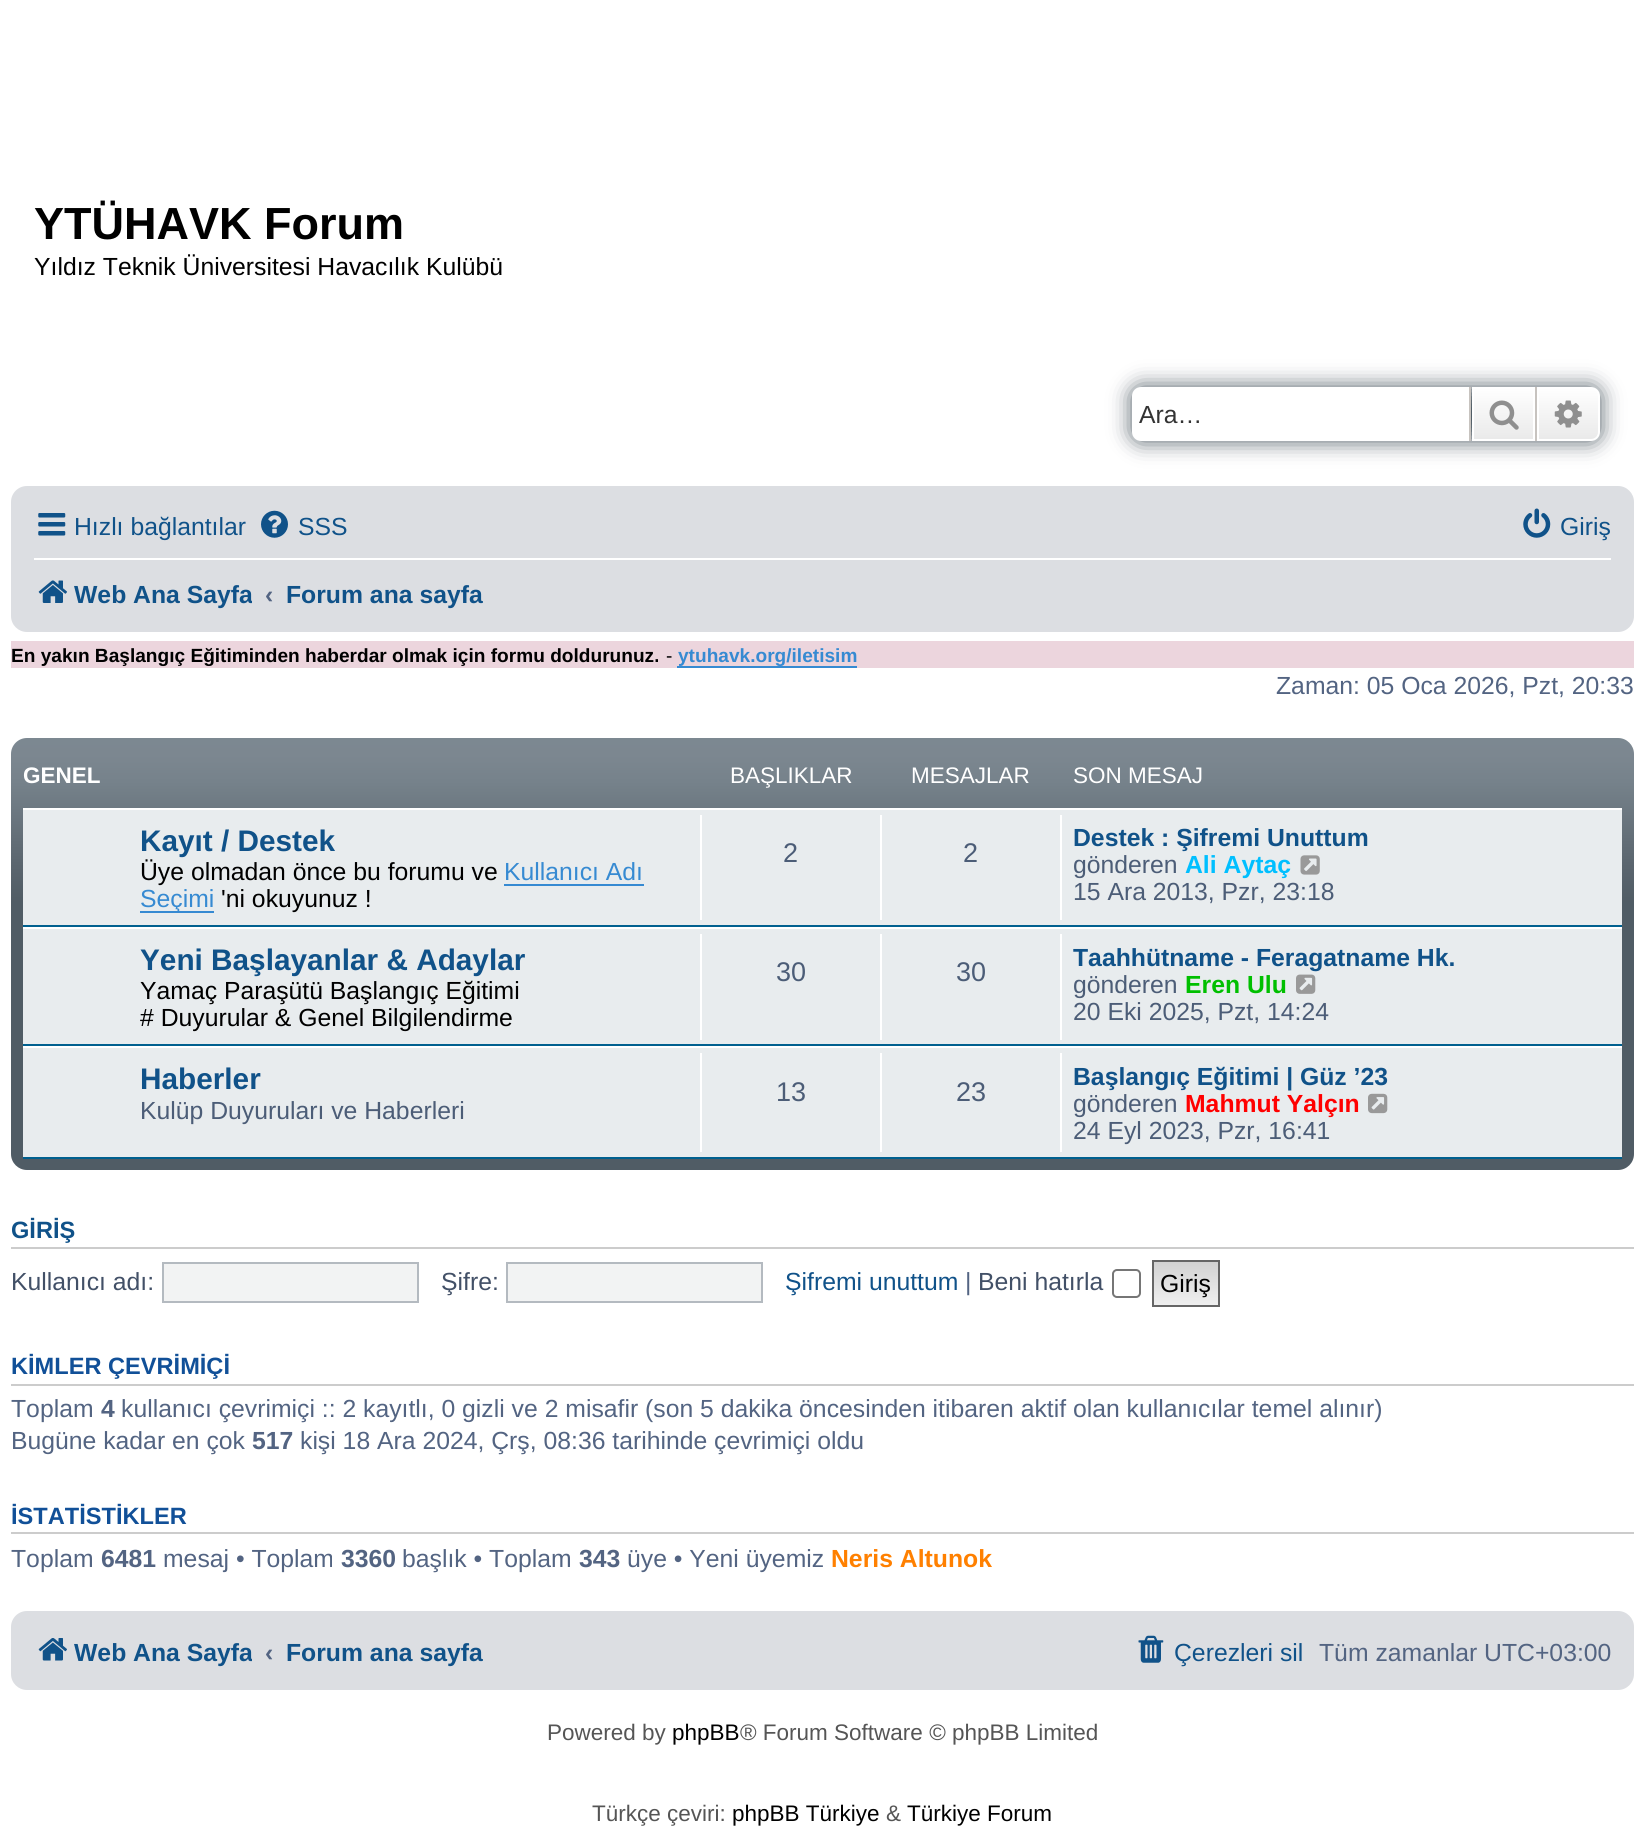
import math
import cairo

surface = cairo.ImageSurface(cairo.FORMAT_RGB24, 1644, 1829)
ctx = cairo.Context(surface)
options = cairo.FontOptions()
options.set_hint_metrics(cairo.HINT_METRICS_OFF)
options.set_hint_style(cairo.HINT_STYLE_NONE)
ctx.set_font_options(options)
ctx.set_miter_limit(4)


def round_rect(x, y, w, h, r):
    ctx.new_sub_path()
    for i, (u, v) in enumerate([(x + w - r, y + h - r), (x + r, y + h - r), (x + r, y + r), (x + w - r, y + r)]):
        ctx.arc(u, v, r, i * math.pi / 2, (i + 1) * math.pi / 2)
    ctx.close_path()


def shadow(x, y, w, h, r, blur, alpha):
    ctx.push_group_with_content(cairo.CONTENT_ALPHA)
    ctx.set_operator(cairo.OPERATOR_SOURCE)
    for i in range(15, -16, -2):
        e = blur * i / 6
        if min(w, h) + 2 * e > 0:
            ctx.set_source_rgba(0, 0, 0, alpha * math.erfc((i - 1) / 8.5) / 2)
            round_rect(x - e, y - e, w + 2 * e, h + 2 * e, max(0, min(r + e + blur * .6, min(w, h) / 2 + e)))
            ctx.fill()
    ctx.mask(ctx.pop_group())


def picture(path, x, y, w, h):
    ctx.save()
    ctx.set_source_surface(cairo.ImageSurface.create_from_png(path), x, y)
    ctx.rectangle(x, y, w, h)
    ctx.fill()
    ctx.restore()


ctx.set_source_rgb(1, 1, 1)
ctx.paint()
ctx.select_font_face("Liberation Sans", cairo.FONT_SLANT_NORMAL, cairo.FONT_WEIGHT_BOLD)
ctx.set_font_size(45)
ctx.set_source_rgb(0, 0, 0)
ctx.move_to(34, 239)
ctx.show_text("YTÜHAVK Forum")
ctx.select_font_face("Liberation Sans")
ctx.set_font_size(24.75)
ctx.move_to(34, 275)
ctx.show_text("Yıldız Teknik Üniversitesi Havacılık Kulübü")
ctx.set_source_rgb(0.314, 0.361, 0.396)
shadow(1132, 387, 468, 54, 9, 11, 1)
ctx.set_source_rgb(1, 1, 1)
ctx.new_path()
ctx.move_to(1141, 387)
ctx.line_to(1469, 387)
ctx.line_to(1469, 441)
ctx.line_to(1141, 441)
ctx.curve_to(1136, 441, 1132, 437, 1132, 432)
ctx.line_to(1132, 396)
ctx.curve_to(1132, 391, 1136, 387, 1141, 387)
ctx.close_path()
ctx.fill()
ctx.set_source_rgb(0.2, 0.2, 0.2)
ctx.move_to(1139, 423)
ctx.show_text("Ara…")
gradient = cairo.LinearGradient(1503, 387, 1503, 441)
gradient.add_color_stop_rgba(0, 1, 1, 1, 1)
gradient.add_color_stop_rgba(1, 0.914, 0.914, 0.914, 1)
ctx.set_source(gradient)
ctx.rectangle(1474, 389, 59, 50)
ctx.fill()
ctx.rectangle(1473, 388, 61, 52)
ctx.set_source_rgb(1, 1, 1)
ctx.stroke()
ctx.set_source_rgb(0.78, 0.765, 0.749)
ctx.rectangle(1535, 387, 2, 54)
ctx.fill()
ctx.rectangle(1469, 387, 2, 54)
ctx.fill()
picture("img1.png", 1489, 400, 30, 30)
gradient = cairo.LinearGradient(1568, 387, 1568, 441)
gradient.add_color_stop_rgba(0, 1, 1, 1, 1)
gradient.add_color_stop_rgba(1, 0.914, 0.914, 0.914, 1)
ctx.set_source(gradient)
ctx.new_path()
ctx.move_to(1538, 388)
ctx.line_to(1591, 388)
ctx.curve_to(1595.5, 388, 1599, 391.5, 1599, 396)
ctx.line_to(1599, 432)
ctx.curve_to(1599, 436.5, 1595.5, 440, 1591, 440)
ctx.line_to(1538, 440)
ctx.close_path()
ctx.fill_preserve()
ctx.set_source_rgb(1, 1, 1)
ctx.stroke()
picture("img2.png", 1554, 400, 28, 28)
ctx.set_source_rgb(0.863, 0.871, 0.886)
round_rect(11, 486, 1623, 146, 16)
ctx.fill()
picture("img3.png", 38, 513, 28, 23)
ctx.set_source_rgb(0.063, 0.322, 0.537)
ctx.move_to(74, 535)
ctx.show_text("Hızlı bağlantılar")
picture("img4.png", 261, 510, 27, 28)
ctx.move_to(298, 535)
ctx.show_text("SSS")
picture("img5.png", 1523, 508, 28, 30)
ctx.move_to(1560, 535)
ctx.show_text("Giriş")
ctx.set_source_rgb(1, 1, 1)
ctx.rectangle(34, 558, 1577, 2)
ctx.fill()
picture("img6.png", 38, 580, 29, 23)
ctx.save()
ctx.rectangle(34, 567, 218, 54)
ctx.clip()
ctx.select_font_face("Liberation Sans", cairo.FONT_SLANT_NORMAL, cairo.FONT_WEIGHT_BOLD)
ctx.set_source_rgb(0.063, 0.322, 0.537)
ctx.move_to(74, 603)
ctx.show_text("Web Ana Sayfa")
ctx.restore()
ctx.select_font_face("Liberation Sans", cairo.FONT_SLANT_NORMAL, cairo.FONT_WEIGHT_BOLD)
ctx.set_source_rgb(0.325, 0.392, 0.51)
ctx.move_to(265, 603)
ctx.show_text("‹")
ctx.set_source_rgb(0.063, 0.322, 0.537)
ctx.move_to(286, 603)
ctx.show_text("Forum ana sayfa")
ctx.set_source_rgb(0.922, 0.835, 0.867)
ctx.rectangle(11, 641, 1623, 27)
ctx.fill()
ctx.set_font_size(19.1)
ctx.set_source_rgb(0, 0, 0)
ctx.move_to(11, 662)
ctx.show_text("En yakın Başlangıç Eğitiminden haberdar olmak için formu doldurunuz.")
ctx.select_font_face("Liberation Sans")
ctx.move_to(666, 662)
ctx.show_text("-")
ctx.set_source_rgb(0.212, 0.541, 0.824)
ctx.rectangle(677, 666, 180, 2)
ctx.fill()
ctx.select_font_face("Liberation Sans", cairo.FONT_SLANT_NORMAL, cairo.FONT_WEIGHT_BOLD)
ctx.move_to(678, 662)
ctx.show_text("ytuhavk.org/iletisim")
ctx.select_font_face("Liberation Sans")
ctx.set_font_size(24.75)
ctx.set_source_rgb(0.325, 0.392, 0.51)
ctx.move_to(1276, 694)
ctx.show_text("Zaman: 05 Oca 2026, Pzt, 20:33")
gradient = cairo.LinearGradient(822, 738, 822, 1170)
gradient.add_color_stop_rgba(0, 0.486, 0.533, 0.569, 1)
gradient.add_color_stop_rgba(0.04, 0.486, 0.529, 0.565, 1)
gradient.add_color_stop_rgba(0.1, 0.463, 0.51, 0.545, 1)
gradient.add_color_stop_rgba(0.29, 0.357, 0.4, 0.435, 1)
gradient.add_color_stop_rgba(0.38, 0.314, 0.361, 0.396, 1)
gradient.add_color_stop_rgba(1, 0.314, 0.361, 0.396, 1)
ctx.set_source(gradient)
round_rect(11, 738, 1623, 432, 16)
ctx.fill()
ctx.select_font_face("Liberation Sans", cairo.FONT_SLANT_NORMAL, cairo.FONT_WEIGHT_BOLD)
ctx.set_font_size(22.5)
ctx.set_source_rgb(1, 1, 1)
ctx.move_to(23, 783)
ctx.show_text("GENEL")
ctx.select_font_face("Liberation Sans")
ctx.move_to(730, 783)
ctx.show_text("BAŞLIKLAR")
ctx.move_to(911, 783)
ctx.show_text("MESAJLAR")
ctx.move_to(1073, 783)
ctx.show_text("SON MESAJ")
ctx.set_source_rgb(0.91, 0.925, 0.933)
ctx.rectangle(23, 810, 1599, 115)
ctx.fill()
ctx.set_source_rgb(1, 1, 1)
ctx.rectangle(23, 808, 1599, 2)
ctx.fill()
ctx.set_source_rgb(0, 0.376, 0.561)
ctx.rectangle(23, 925, 1599, 2)
ctx.fill()
ctx.select_font_face("Liberation Sans", cairo.FONT_SLANT_NORMAL, cairo.FONT_WEIGHT_BOLD)
ctx.set_font_size(29.75)
ctx.set_source_rgb(0.063, 0.322, 0.537)
ctx.move_to(140, 851)
ctx.show_text("Kayıt / Destek")
ctx.select_font_face("Liberation Sans")
ctx.set_font_size(24.75)
ctx.set_source_rgb(0, 0, 0)
ctx.move_to(140, 880)
ctx.show_text("Üye olmadan önce bu forumu ve")
ctx.set_source_rgb(0.212, 0.541, 0.824)
ctx.move_to(504, 880)
ctx.show_text("Kullanıcı Adı")
ctx.rectangle(504, 884, 140, 2)
ctx.fill()
ctx.rectangle(140, 911, 74, 2)
ctx.fill()
ctx.move_to(140, 907)
ctx.show_text("Seçimi")
ctx.set_source_rgb(0, 0, 0)
ctx.move_to(221, 907)
ctx.show_text("'ni okuyunuz !")
ctx.set_source_rgb(1, 1, 1)
ctx.rectangle(700, 815, 2, 105)
ctx.fill()
ctx.set_font_size(27)
ctx.set_source_rgb(0.298, 0.365, 0.467)
ctx.move_to(783, 862)
ctx.show_text("2")
ctx.set_source_rgb(1, 1, 1)
ctx.rectangle(880, 815, 2, 105)
ctx.fill()
ctx.set_source_rgb(0.298, 0.365, 0.467)
ctx.move_to(963, 862)
ctx.show_text("2")
ctx.set_source_rgb(1, 1, 1)
ctx.rectangle(1060, 815, 2, 105)
ctx.fill()
ctx.select_font_face("Liberation Sans", cairo.FONT_SLANT_NORMAL, cairo.FONT_WEIGHT_BOLD)
ctx.set_font_size(24.75)
ctx.set_source_rgb(0.063, 0.322, 0.537)
ctx.move_to(1073, 846)
ctx.show_text("Destek : Şifremi Unuttum")
ctx.select_font_face("Liberation Sans")
ctx.set_source_rgb(0.298, 0.365, 0.467)
ctx.move_to(1073, 873)
ctx.show_text("gönderen")
ctx.select_font_face("Liberation Sans", cairo.FONT_SLANT_NORMAL, cairo.FONT_WEIGHT_BOLD)
ctx.set_source_rgb(0, 0.749, 1)
ctx.move_to(1185, 873)
ctx.show_text("Ali Aytaç")
picture("img7.png", 1300, 855, 20, 20)
ctx.select_font_face("Liberation Sans")
ctx.set_source_rgb(0.298, 0.365, 0.467)
ctx.move_to(1073, 900)
ctx.show_text("15 Ara 2013, Pzr, 23:18")
ctx.set_source_rgb(0.91, 0.925, 0.933)
ctx.rectangle(23, 929, 1599, 115)
ctx.fill()
ctx.set_source_rgb(1, 1, 1)
ctx.rectangle(23, 927, 1599, 2)
ctx.fill()
ctx.set_source_rgb(0, 0.376, 0.561)
ctx.rectangle(23, 1044, 1599, 2)
ctx.fill()
ctx.select_font_face("Liberation Sans", cairo.FONT_SLANT_NORMAL, cairo.FONT_WEIGHT_BOLD)
ctx.set_font_size(29.75)
ctx.set_source_rgb(0.063, 0.322, 0.537)
ctx.move_to(140, 970)
ctx.show_text("Yeni Başlayanlar & Adaylar")
ctx.select_font_face("Liberation Sans")
ctx.set_font_size(24.75)
ctx.set_source_rgb(0, 0, 0)
ctx.move_to(140, 999)
ctx.show_text("Yamaç Paraşütü Başlangıç Eğitimi")
ctx.move_to(140, 1026)
ctx.show_text("# Duyurular & Genel Bilgilendirme")
ctx.set_source_rgb(1, 1, 1)
ctx.rectangle(700, 934, 2, 106)
ctx.fill()
ctx.set_font_size(27)
ctx.set_source_rgb(0.298, 0.365, 0.467)
ctx.move_to(776, 981)
ctx.show_text("30")
ctx.set_source_rgb(1, 1, 1)
ctx.rectangle(880, 934, 2, 106)
ctx.fill()
ctx.set_source_rgb(0.298, 0.365, 0.467)
ctx.move_to(956, 981)
ctx.show_text("30")
ctx.set_source_rgb(1, 1, 1)
ctx.rectangle(1060, 934, 2, 106)
ctx.fill()
ctx.select_font_face("Liberation Sans", cairo.FONT_SLANT_NORMAL, cairo.FONT_WEIGHT_BOLD)
ctx.set_font_size(24.75)
ctx.set_source_rgb(0.063, 0.322, 0.537)
ctx.move_to(1073, 966)
ctx.show_text("Taahhütname - Feragatname Hk.")
ctx.select_font_face("Liberation Sans")
ctx.set_source_rgb(0.298, 0.365, 0.467)
ctx.move_to(1073, 993)
ctx.show_text("gönderen")
ctx.select_font_face("Liberation Sans", cairo.FONT_SLANT_NORMAL, cairo.FONT_WEIGHT_BOLD)
ctx.set_source_rgb(0, 0.749, 0)
ctx.move_to(1185, 993)
ctx.show_text("Eren Ulu")
picture("img8.png", 1296, 974, 20, 20)
ctx.select_font_face("Liberation Sans")
ctx.set_source_rgb(0.298, 0.365, 0.467)
ctx.move_to(1073, 1020)
ctx.show_text("20 Eki 2025, Pzt, 14:24")
ctx.set_source_rgb(0.91, 0.925, 0.933)
ctx.rectangle(23, 1048, 1599, 109)
ctx.fill()
ctx.set_source_rgb(1, 1, 1)
ctx.rectangle(23, 1046, 1599, 2)
ctx.fill()
ctx.set_source_rgb(0, 0.376, 0.561)
ctx.rectangle(23, 1157, 1599, 2)
ctx.fill()
ctx.select_font_face("Liberation Sans", cairo.FONT_SLANT_NORMAL, cairo.FONT_WEIGHT_BOLD)
ctx.set_font_size(29.75)
ctx.set_source_rgb(0.063, 0.322, 0.537)
ctx.move_to(140, 1089)
ctx.show_text("Haberler")
ctx.select_font_face("Liberation Sans")
ctx.set_font_size(24.75)
ctx.set_source_rgb(0.298, 0.365, 0.467)
ctx.move_to(140, 1119)
ctx.show_text("Kulüp Duyuruları ve Haberleri")
ctx.set_source_rgb(1, 1, 1)
ctx.rectangle(700, 1053, 2, 99)
ctx.fill()
ctx.set_font_size(27)
ctx.set_source_rgb(0.298, 0.365, 0.467)
ctx.move_to(776, 1101)
ctx.show_text("13")
ctx.set_source_rgb(1, 1, 1)
ctx.rectangle(880, 1053, 2, 99)
ctx.fill()
ctx.set_source_rgb(0.298, 0.365, 0.467)
ctx.move_to(956, 1101)
ctx.show_text("23")
ctx.set_source_rgb(1, 1, 1)
ctx.rectangle(1060, 1053, 2, 99)
ctx.fill()
ctx.select_font_face("Liberation Sans", cairo.FONT_SLANT_NORMAL, cairo.FONT_WEIGHT_BOLD)
ctx.set_font_size(24.75)
ctx.set_source_rgb(0.063, 0.322, 0.537)
ctx.move_to(1073, 1085)
ctx.show_text("Başlangıç Eğitimi | Güz ’23")
ctx.select_font_face("Liberation Sans")
ctx.set_source_rgb(0.298, 0.365, 0.467)
ctx.move_to(1073, 1112)
ctx.show_text("gönderen")
ctx.select_font_face("Liberation Sans", cairo.FONT_SLANT_NORMAL, cairo.FONT_WEIGHT_BOLD)
ctx.set_source_rgb(1, 0, 0)
ctx.move_to(1185, 1112)
ctx.show_text("Mahmut Yalçın")
picture("img9.png", 1368, 1093, 20, 21)
ctx.select_font_face("Liberation Sans")
ctx.set_source_rgb(0.298, 0.365, 0.467)
ctx.move_to(1073, 1139)
ctx.show_text("24 Eyl 2023, Pzr, 16:41")
ctx.set_source_rgb(0.8, 0.8, 0.8)
ctx.rectangle(11, 1247, 1623, 2)
ctx.fill()
ctx.select_font_face("Liberation Sans", cairo.FONT_SLANT_NORMAL, cairo.FONT_WEIGHT_BOLD)
ctx.set_font_size(23.6)
ctx.set_source_rgb(0.063, 0.322, 0.537)
ctx.move_to(11, 1238)
ctx.show_text("GİRİŞ")
ctx.select_font_face("Liberation Sans")
ctx.set_font_size(24.75)
ctx.set_source_rgb(0.259, 0.314, 0.404)
ctx.move_to(11, 1290)
ctx.show_text("Kullanıcı adı:")
ctx.set_source_rgb(0.949, 0.953, 0.953)
ctx.rectangle(163, 1263, 255, 39)
ctx.fill_preserve()
ctx.set_source_rgb(0.706, 0.729, 0.753)
ctx.stroke()
ctx.set_source_rgb(0.259, 0.314, 0.404)
ctx.move_to(441, 1290)
ctx.show_text("Şifre:")
ctx.set_source_rgb(0.949, 0.953, 0.953)
ctx.rectangle(507, 1263, 255, 39)
ctx.fill_preserve()
ctx.set_source_rgb(0.706, 0.729, 0.753)
ctx.stroke()
ctx.set_source_rgb(0.063, 0.322, 0.537)
ctx.move_to(785, 1290)
ctx.show_text("Şifremi unuttum")
ctx.set_source_rgb(0.325, 0.392, 0.51)
ctx.move_to(965, 1290)
ctx.show_text("|")
ctx.set_source_rgb(0.259, 0.314, 0.404)
ctx.move_to(978, 1290)
ctx.show_text("Beni hatırla")
round_rect(1113, 1270, 27, 27, 4)
ctx.set_source_rgb(0.463, 0.463, 0.463)
ctx.stroke()
gradient = cairo.LinearGradient(1186, 1262, 1186, 1305)
gradient.add_color_stop_rgba(0, 0.824, 0.824, 0.824, 1)
gradient.add_color_stop_rgba(1, 0.937, 0.937, 0.937, 1)
ctx.set_source(gradient)
ctx.rectangle(1154, 1262, 64, 43)
ctx.fill()
ctx.rectangle(1153, 1261, 66, 45)
ctx.set_source_rgb(0.4, 0.4, 0.4)
ctx.stroke()
ctx.set_source_rgb(0, 0, 0)
ctx.move_to(1160, 1292)
ctx.show_text("Giriş")
ctx.set_source_rgb(0.8, 0.8, 0.8)
ctx.rectangle(11, 1384, 1623, 2)
ctx.fill()
ctx.select_font_face("Liberation Sans", cairo.FONT_SLANT_NORMAL, cairo.FONT_WEIGHT_BOLD)
ctx.set_font_size(23.6)
ctx.set_source_rgb(0.067, 0.314, 0.596)
ctx.move_to(11, 1374)
ctx.show_text("KİMLER ÇEVRİMİÇİ")
ctx.select_font_face("Liberation Sans")
ctx.set_font_size(24.75)
ctx.set_source_rgb(0.325, 0.392, 0.51)
ctx.move_to(11, 1417)
ctx.show_text("Toplam")
ctx.select_font_face("Liberation Sans", cairo.FONT_SLANT_NORMAL, cairo.FONT_WEIGHT_BOLD)
ctx.move_to(101, 1417)
ctx.show_text("4")
ctx.select_font_face("Liberation Sans")
ctx.move_to(121, 1417)
ctx.show_text("kullanıcı çevrimiçi :: 2 kayıtlı, 0 gizli ve 2 misafir (son 5 dakika öncesinden itibaren aktif olan kullanıcılar temel alınır)")
ctx.move_to(11, 1449)
ctx.show_text("Bugüne kadar en çok")
ctx.select_font_face("Liberation Sans", cairo.FONT_SLANT_NORMAL, cairo.FONT_WEIGHT_BOLD)
ctx.move_to(252, 1449)
ctx.show_text("517")
ctx.select_font_face("Liberation Sans")
ctx.move_to(300, 1449)
ctx.show_text("kişi 18 Ara 2024, Çrş, 08:36 tarihinde çevrimiçi oldu")
ctx.set_source_rgb(0.8, 0.8, 0.8)
ctx.rectangle(11, 1532, 1623, 2)
ctx.fill()
ctx.select_font_face("Liberation Sans", cairo.FONT_SLANT_NORMAL, cairo.FONT_WEIGHT_BOLD)
ctx.set_font_size(23.6)
ctx.set_source_rgb(0.067, 0.314, 0.596)
ctx.move_to(11, 1524)
ctx.show_text("İSTATİSTİKLER")
ctx.select_font_face("Liberation Sans")
ctx.set_font_size(24.75)
ctx.set_source_rgb(0.325, 0.392, 0.51)
ctx.move_to(11, 1567)
ctx.show_text("Toplam")
ctx.select_font_face("Liberation Sans", cairo.FONT_SLANT_NORMAL, cairo.FONT_WEIGHT_BOLD)
ctx.move_to(101, 1567)
ctx.show_text("6481")
ctx.select_font_face("Liberation Sans")
ctx.move_to(163, 1567)
ctx.show_text("mesaj • Toplam")
ctx.select_font_face("Liberation Sans", cairo.FONT_SLANT_NORMAL, cairo.FONT_WEIGHT_BOLD)
ctx.move_to(341, 1567)
ctx.show_text("3360")
ctx.select_font_face("Liberation Sans")
ctx.move_to(402, 1567)
ctx.show_text("başlık • Toplam")
ctx.select_font_face("Liberation Sans", cairo.FONT_SLANT_NORMAL, cairo.FONT_WEIGHT_BOLD)
ctx.move_to(579, 1567)
ctx.show_text("343")
ctx.select_font_face("Liberation Sans")
ctx.move_to(627, 1567)
ctx.show_text("üye • Yeni üyemiz")
ctx.select_font_face("Liberation Sans", cairo.FONT_SLANT_NORMAL, cairo.FONT_WEIGHT_BOLD)
ctx.set_source_rgb(1, 0.502, 0)
ctx.move_to(831, 1567)
ctx.show_text("Neris Altunok")
ctx.set_source_rgb(0.863, 0.871, 0.886)
round_rect(11, 1611, 1623, 79, 16)
ctx.fill()
picture("img10.png", 38, 1638, 29, 23)
ctx.save()
ctx.rectangle(34, 1625, 218, 54)
ctx.clip()
ctx.set_source_rgb(0.063, 0.322, 0.537)
ctx.move_to(74, 1661)
ctx.show_text("Web Ana Sayfa")
ctx.restore()
ctx.set_source_rgb(0.325, 0.392, 0.51)
ctx.move_to(265, 1661)
ctx.show_text("‹")
ctx.set_source_rgb(0.063, 0.322, 0.537)
ctx.move_to(286, 1661)
ctx.show_text("Forum ana sayfa")
picture("img11.png", 1138, 1635, 26, 28)
ctx.select_font_face("Liberation Sans")
ctx.move_to(1174, 1661)
ctx.show_text("Çerezleri sil")
ctx.set_source_rgb(0.325, 0.392, 0.51)
ctx.move_to(1319, 1661)
ctx.show_text("Tüm zamanlar UTC+03:00")
ctx.set_font_size(22.5)
ctx.set_source_rgb(0.333, 0.333, 0.333)
ctx.move_to(547, 1740)
ctx.show_text("Powered by")
ctx.set_source_rgb(0, 0, 0)
ctx.move_to(672, 1740)
ctx.show_text("phpBB")
ctx.set_source_rgb(0.333, 0.333, 0.333)
ctx.move_to(740, 1740)
ctx.show_text("® Forum Software © phpBB Limited")
ctx.move_to(592, 1821)
ctx.show_text("Türkçe çeviri:")
ctx.set_source_rgb(0, 0, 0)
ctx.move_to(732, 1821)
ctx.show_text("phpBB Türkiye")
ctx.set_source_rgb(0.333, 0.333, 0.333)
ctx.move_to(886, 1821)
ctx.show_text("&")
ctx.set_source_rgb(0, 0, 0)
ctx.move_to(907, 1821)
ctx.show_text("Türkiye Forum")
surface.write_to_png("page.png")
